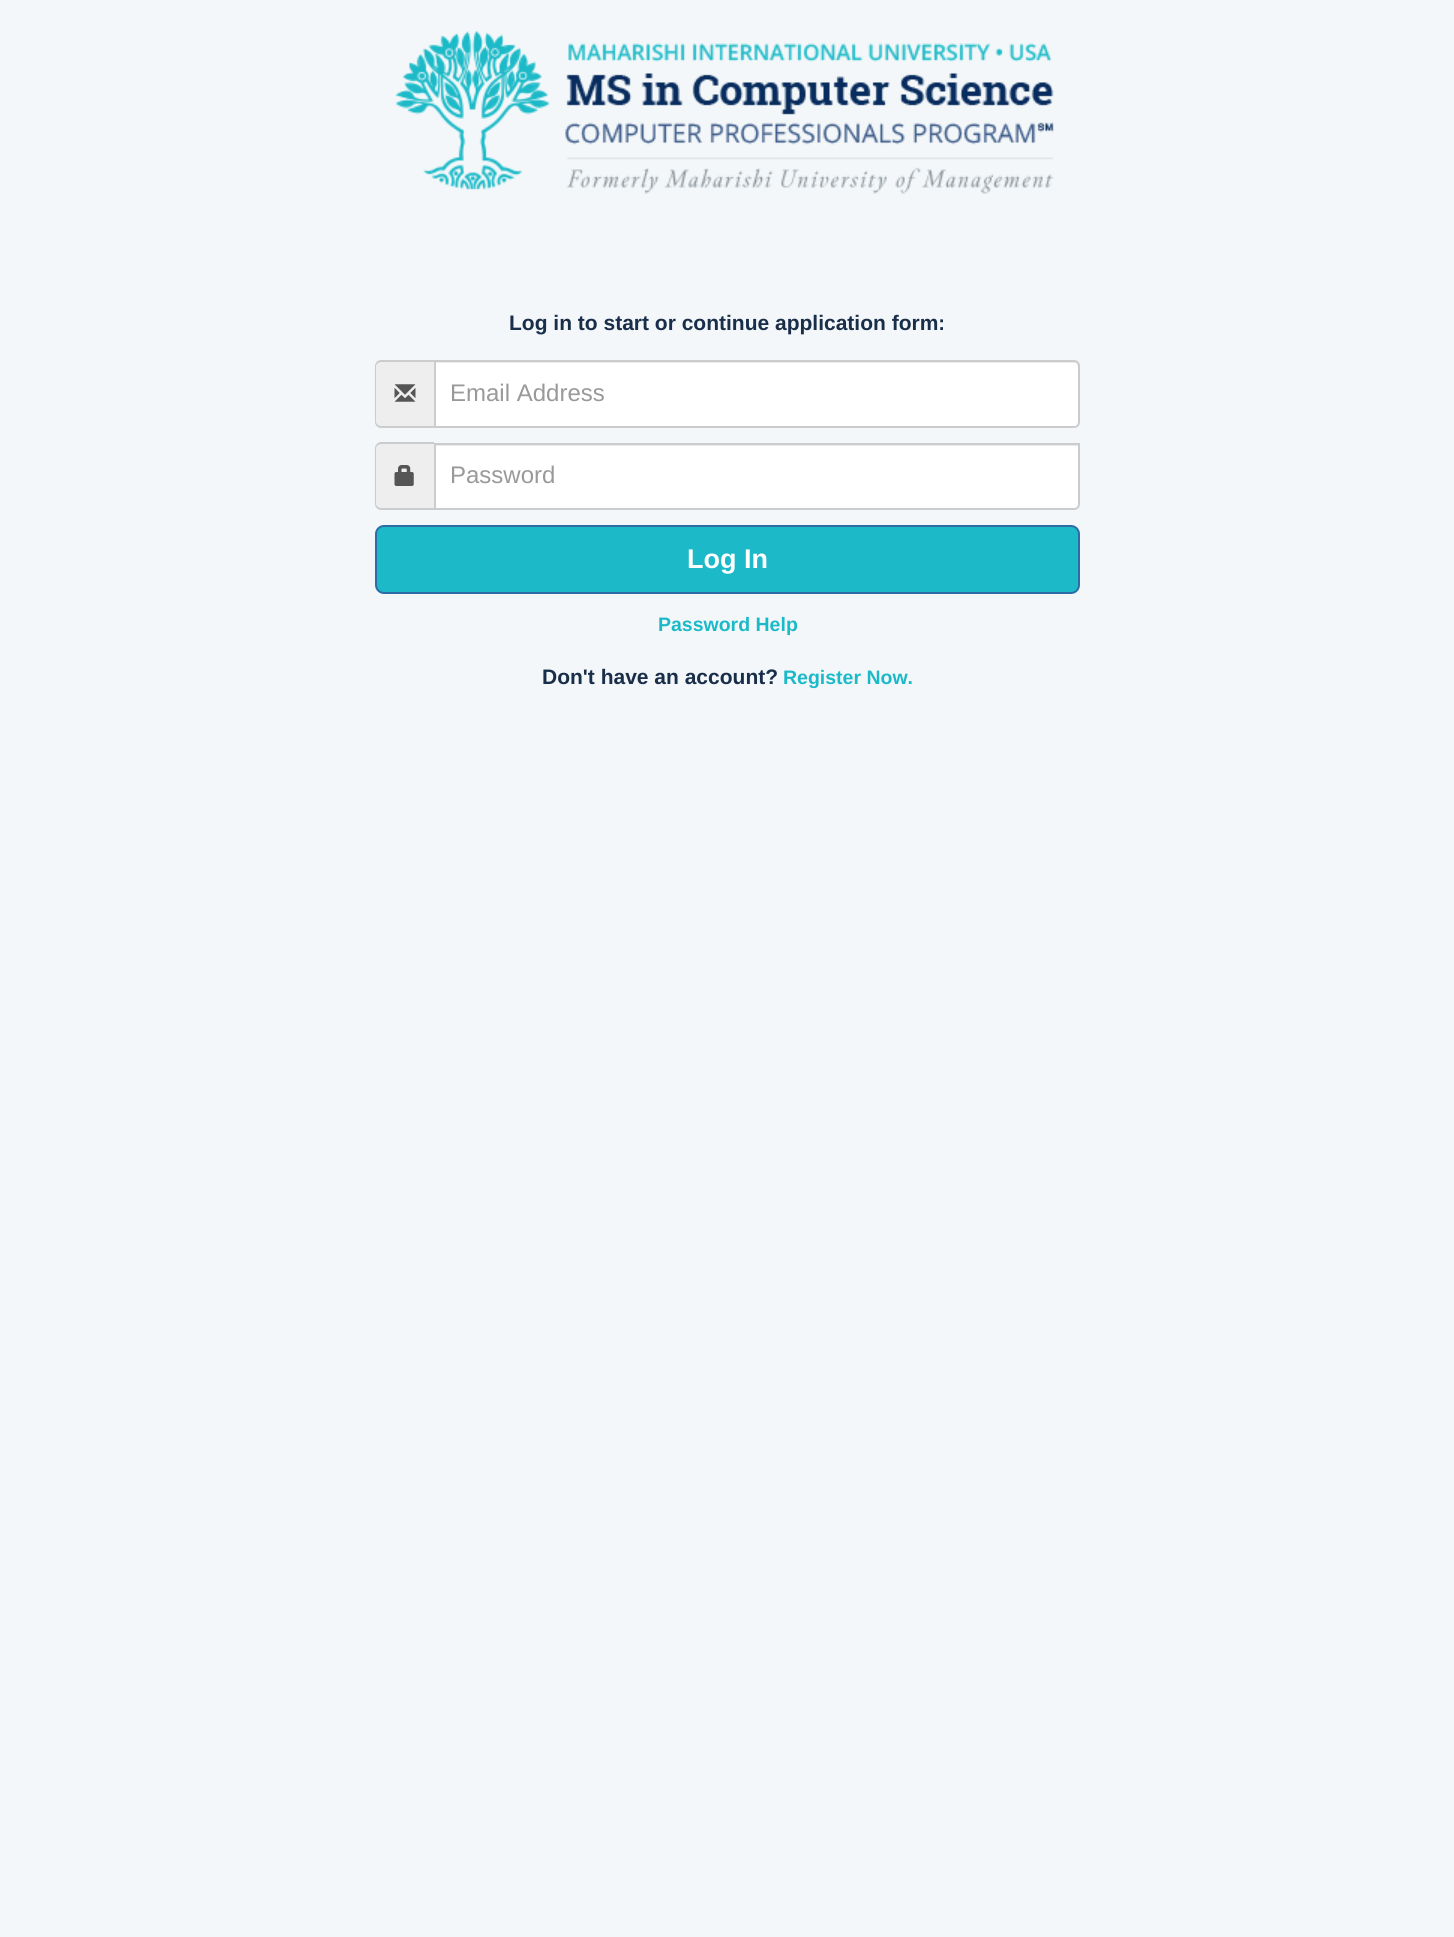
import math
import cairo

surface = cairo.ImageSurface(cairo.FORMAT_RGB24, 1454, 1937)
ctx = cairo.Context(surface)
options = cairo.FontOptions()
options.set_hint_metrics(cairo.HINT_METRICS_OFF)
options.set_hint_style(cairo.HINT_STYLE_NONE)
ctx.set_font_options(options)
ctx.set_miter_limit(4)


def round_rect(x, y, w, h, r):
    ctx.new_sub_path()
    for i, (u, v) in enumerate([(x + w - r, y + h - r), (x + r, y + h - r), (x + r, y + r), (x + w - r, y + r)]):
        ctx.arc(u, v, r, i * math.pi / 2, (i + 1) * math.pi / 2)
    ctx.close_path()


def picture(path, x, y, w, h):
    ctx.save()
    ctx.set_source_surface(cairo.ImageSurface.create_from_png(path), x, y)
    ctx.rectangle(x, y, w, h)
    ctx.fill()
    ctx.restore()


ctx.set_source_rgb(0.953, 0.965, 0.976)
ctx.paint()
picture("img1.png", 395, 31, 659, 163)
ctx.select_font_face("Liberation Sans", cairo.FONT_SLANT_NORMAL, cairo.FONT_WEIGHT_BOLD)
ctx.set_font_size(21)
ctx.set_source_rgb(0.098, 0.18, 0.286)
ctx.move_to(509, 330)
ctx.show_text("Log in to start or continue application form:")
ctx.set_source_rgb(0.933, 0.933, 0.933)
ctx.new_path()
ctx.move_to(381, 360)
ctx.line_to(434, 360)
ctx.line_to(434, 428)
ctx.line_to(381, 428)
ctx.curve_to(377.5, 428, 375, 425.5, 375, 422)
ctx.line_to(375, 366)
ctx.curve_to(375, 362.5, 377.5, 360, 381, 360)
ctx.close_path()
ctx.fill()
ctx.set_source_rgb(0.8, 0.8, 0.8)
ctx.set_fill_rule(cairo.FILL_RULE_EVEN_ODD)
ctx.new_path()
ctx.move_to(381, 360)
ctx.line_to(434, 360)
ctx.line_to(434, 428)
ctx.line_to(381, 428)
ctx.curve_to(378, 428, 375, 425, 375, 422)
ctx.line_to(375, 366)
ctx.curve_to(375, 363, 378, 360, 381, 360)
ctx.close_path()
ctx.move_to(381, 362)
ctx.line_to(434, 362)
ctx.line_to(434, 426)
ctx.line_to(381, 426)
ctx.curve_to(379, 426, 376, 424, 376, 422)
ctx.line_to(376, 366)
ctx.curve_to(376, 364, 379, 362, 381, 362)
ctx.close_path()
ctx.fill()
picture("img2.png", 394, 384, 22, 18)
ctx.set_source_rgb(1, 1, 1)
ctx.new_path()
ctx.move_to(434, 360)
ctx.line_to(1074, 360)
ctx.curve_to(1077.5, 360, 1080, 362.5, 1080, 366)
ctx.line_to(1080, 422)
ctx.curve_to(1080, 425.5, 1077.5, 428, 1074, 428)
ctx.line_to(434, 428)
ctx.close_path()
ctx.fill()
ctx.set_source_rgb(0.925, 0.925, 0.925)
ctx.set_fill_rule(cairo.FILL_RULE_WINDING)
ctx.new_path()
ctx.move_to(435, 363)
ctx.line_to(1074, 363)
ctx.curve_to(1076, 363, 1078, 365, 1078, 368)
ctx.line_to(1078, 424)
ctx.curve_to(1079, 423, 1079, 422, 1079, 421)
ctx.line_to(1079, 367)
ctx.curve_to(1079, 364, 1077, 362, 1074, 362)
ctx.line_to(435, 362)
ctx.close_path()
ctx.fill()
ctx.new_path()
ctx.move_to(435, 361)
ctx.line_to(1074, 361)
ctx.curve_to(1077, 361, 1079, 363, 1079, 366)
ctx.line_to(1079, 422)
ctx.curve_to(1079, 425, 1077, 427, 1074, 427)
ctx.line_to(435, 427)
ctx.close_path()
ctx.set_source_rgb(0.8, 0.8, 0.8)
ctx.stroke()
ctx.select_font_face("Liberation Sans")
ctx.set_font_size(24)
ctx.set_source_rgb(0.6, 0.6, 0.6)
ctx.move_to(450, 401)
ctx.show_text("Email Address")
ctx.set_source_rgb(0.933, 0.933, 0.933)
ctx.new_path()
ctx.move_to(381, 443)
ctx.line_to(434, 443)
ctx.line_to(434, 510)
ctx.line_to(381, 510)
ctx.curve_to(377.5, 510, 375, 507.5, 375, 504)
ctx.line_to(375, 449)
ctx.curve_to(375, 445.5, 377.5, 443, 381, 443)
ctx.close_path()
ctx.fill()
ctx.set_source_rgb(0.8, 0.8, 0.8)
ctx.set_fill_rule(cairo.FILL_RULE_EVEN_ODD)
ctx.new_path()
ctx.move_to(381, 442)
ctx.line_to(434, 442)
ctx.line_to(434, 510)
ctx.line_to(381, 510)
ctx.curve_to(378, 510, 375, 507, 375, 504)
ctx.line_to(375, 448)
ctx.curve_to(375, 445, 378, 442, 381, 442)
ctx.close_path()
ctx.move_to(381, 444)
ctx.line_to(434, 444)
ctx.line_to(434, 508)
ctx.line_to(381, 508)
ctx.curve_to(379, 508, 376, 506, 376, 504)
ctx.line_to(376, 448)
ctx.curve_to(376, 446, 379, 444, 381, 444)
ctx.close_path()
ctx.fill()
picture("img3.png", 394, 465, 20, 21)
ctx.set_source_rgb(1, 1, 1)
ctx.new_path()
ctx.move_to(434, 443)
ctx.line_to(1080, 443)
ctx.line_to(1080, 504)
ctx.curve_to(1080, 507.5, 1077.5, 510, 1074, 510)
ctx.line_to(434, 510)
ctx.close_path()
ctx.fill()
ctx.set_source_rgb(0.925, 0.925, 0.925)
ctx.set_fill_rule(cairo.FILL_RULE_WINDING)
ctx.new_path()
ctx.move_to(435, 446)
ctx.line_to(1078, 446)
ctx.line_to(1078, 507)
ctx.curve_to(1079, 506, 1079, 505, 1079, 504)
ctx.line_to(1079, 444)
ctx.line_to(435, 444)
ctx.close_path()
ctx.fill()
ctx.new_path()
ctx.move_to(435, 444)
ctx.line_to(1079, 444)
ctx.line_to(1079, 504)
ctx.curve_to(1079, 507, 1077, 509, 1074, 509)
ctx.line_to(435, 509)
ctx.close_path()
ctx.set_source_rgb(0.8, 0.8, 0.8)
ctx.stroke()
ctx.set_source_rgb(0.6, 0.6, 0.6)
ctx.move_to(450, 483)
ctx.show_text("Password")
ctx.set_source_rgb(0.11, 0.729, 0.784)
round_rect(376, 526, 703, 67, 8)
ctx.fill_preserve()
ctx.set_source_rgb(0.18, 0.427, 0.643)
ctx.stroke()
ctx.select_font_face("Liberation Sans", cairo.FONT_SLANT_NORMAL, cairo.FONT_WEIGHT_BOLD)
ctx.set_font_size(27)
ctx.set_source_rgb(1, 1, 1)
ctx.move_to(687, 568)
ctx.show_text("Log In")
ctx.set_font_size(19.5)
ctx.set_source_rgb(0.11, 0.729, 0.784)
ctx.move_to(658, 631)
ctx.show_text("Password Help")
ctx.set_font_size(21)
ctx.set_source_rgb(0.098, 0.18, 0.286)
ctx.move_to(542, 684)
ctx.show_text("Don't have an account?")
ctx.set_font_size(19.5)
ctx.set_source_rgb(0.11, 0.729, 0.784)
ctx.move_to(783, 684)
ctx.show_text("Register Now.")
surface.write_to_png("page.png")
